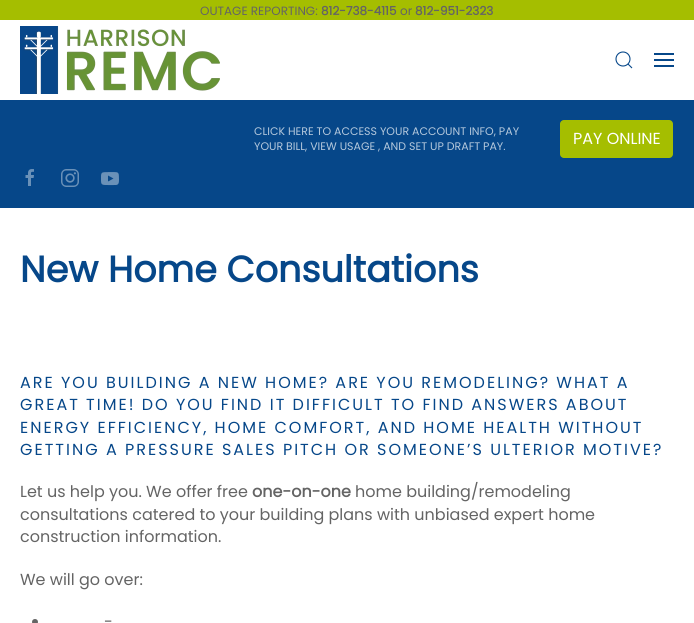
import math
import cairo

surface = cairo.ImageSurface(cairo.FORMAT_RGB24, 694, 623)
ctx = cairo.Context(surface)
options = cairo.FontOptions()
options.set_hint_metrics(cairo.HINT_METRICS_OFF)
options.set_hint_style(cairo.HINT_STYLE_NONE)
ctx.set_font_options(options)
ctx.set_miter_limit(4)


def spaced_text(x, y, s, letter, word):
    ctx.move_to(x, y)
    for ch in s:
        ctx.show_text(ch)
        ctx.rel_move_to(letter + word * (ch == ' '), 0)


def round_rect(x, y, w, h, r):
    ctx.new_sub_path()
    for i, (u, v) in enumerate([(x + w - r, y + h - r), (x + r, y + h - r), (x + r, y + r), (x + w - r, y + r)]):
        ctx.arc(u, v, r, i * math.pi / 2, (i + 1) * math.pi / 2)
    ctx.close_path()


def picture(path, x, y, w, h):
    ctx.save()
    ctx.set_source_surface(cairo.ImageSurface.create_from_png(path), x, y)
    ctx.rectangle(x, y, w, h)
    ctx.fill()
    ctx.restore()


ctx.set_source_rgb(1, 1, 1)
ctx.paint()
ctx.set_source_rgb(0.647, 0.745, 0)
ctx.rectangle(0, 0, 694, 20)
ctx.fill()
ctx.select_font_face("Poppins")
ctx.set_font_size(12)
ctx.set_source_rgb(0.392, 0.392, 0.392)
ctx.move_to(200, 15)
ctx.show_text("OUTAGE REPORTING:")
ctx.select_font_face("Poppins", cairo.FONT_SLANT_NORMAL, cairo.FONT_WEIGHT_BOLD)
ctx.move_to(321, 15)
ctx.show_text("812-738-4115")
ctx.select_font_face("Poppins")
ctx.move_to(400, 15)
ctx.show_text("or")
ctx.select_font_face("Poppins", cairo.FONT_SLANT_NORMAL, cairo.FONT_WEIGHT_BOLD)
ctx.move_to(415, 15)
ctx.show_text("812-951-2323")
picture("img1.png", 20, 26, 200, 68)
ctx.arc(623, 59, 7, 0, 2 * math.pi)
ctx.set_source_rgb(0.024, 0.278, 0.537)
ctx.set_line_width(1.1)
ctx.stroke()
ctx.new_path()
ctx.move_to(628, 64)
ctx.line_to(632, 68)
ctx.close_path()
ctx.stroke()
ctx.rectangle(654, 53, 20, 2)
ctx.fill()
ctx.rectangle(654, 59, 20, 2)
ctx.fill()
ctx.rectangle(654, 65, 20, 2)
ctx.fill()
ctx.rectangle(0, 100, 694, 108)
ctx.fill()
ctx.select_font_face("Poppins")
ctx.set_font_size(11)
ctx.set_source_rgb(0.706, 0.784, 0.863)
ctx.move_to(254, 135)
ctx.show_text("CLICK HERE TO ACCESS YOUR ACCOUNT INFO, PAY")
ctx.move_to(254, 150)
ctx.show_text("YOUR BILL, VIEW USAGE , AND SET UP DRAFT PAY.")
ctx.set_source_rgb(0.647, 0.745, 0)
round_rect(560, 120, 113, 38, 4)
ctx.fill()
ctx.set_font_size(16)
ctx.set_source_rgb(1, 1, 1)
ctx.move_to(573, 144)
ctx.show_text("PAY ONLINE")
picture("img2.png", 25, 169, 9, 17)
picture("img3.png", 61, 169, 18, 18)
picture("img4.png", 101, 172, 18, 14)
ctx.select_font_face("Poppins", cairo.FONT_SLANT_NORMAL, cairo.FONT_WEIGHT_BOLD)
ctx.set_font_size(36.5)
ctx.set_source_rgb(0.024, 0.278, 0.537)
ctx.move_to(20, 282)
ctx.show_text("New Home Consultations")
ctx.select_font_face("Poppins")
ctx.set_font_size(16)
spaced_text(20, 388, "ARE YOU BUILDING A NEW HOME? ARE YOU REMODELING? WHAT A", 2, 0)
spaced_text(20, 410, "GREAT TIME! DO YOU FIND IT DIFFICULT TO FIND ANSWERS ABOUT", 2, 0)
spaced_text(20, 433, "ENERGY EFFICIENCY, HOME COMFORT, AND HOME HEALTH WITHOUT", 2, 0)
spaced_text(20, 455, "GETTING A PRESSURE SALES PITCH OR SOMEONE’S ULTERIOR MOTIVE?", 2, 0)
ctx.set_source_rgb(0.392, 0.392, 0.392)
ctx.move_to(20, 497)
ctx.show_text("Let us help you. We offer free")
ctx.select_font_face("Poppins", cairo.FONT_SLANT_NORMAL, cairo.FONT_WEIGHT_BOLD)
ctx.move_to(252, 497)
ctx.show_text("one-on-one")
ctx.select_font_face("Poppins")
ctx.move_to(355, 497)
ctx.show_text("home building/remodeling")
ctx.move_to(20, 520)
ctx.show_text("consultations catered to your building plans with unbiased expert home")
ctx.move_to(20, 542)
ctx.show_text("construction information.")
ctx.move_to(20, 585)
ctx.show_text("We will go over:")
ctx.new_path()
ctx.arc(35, 622, 3, 0, 2 * math.pi)
ctx.fill()
ctx.move_to(104, 627)
ctx.show_text("-")
surface.write_to_png("page.png")
